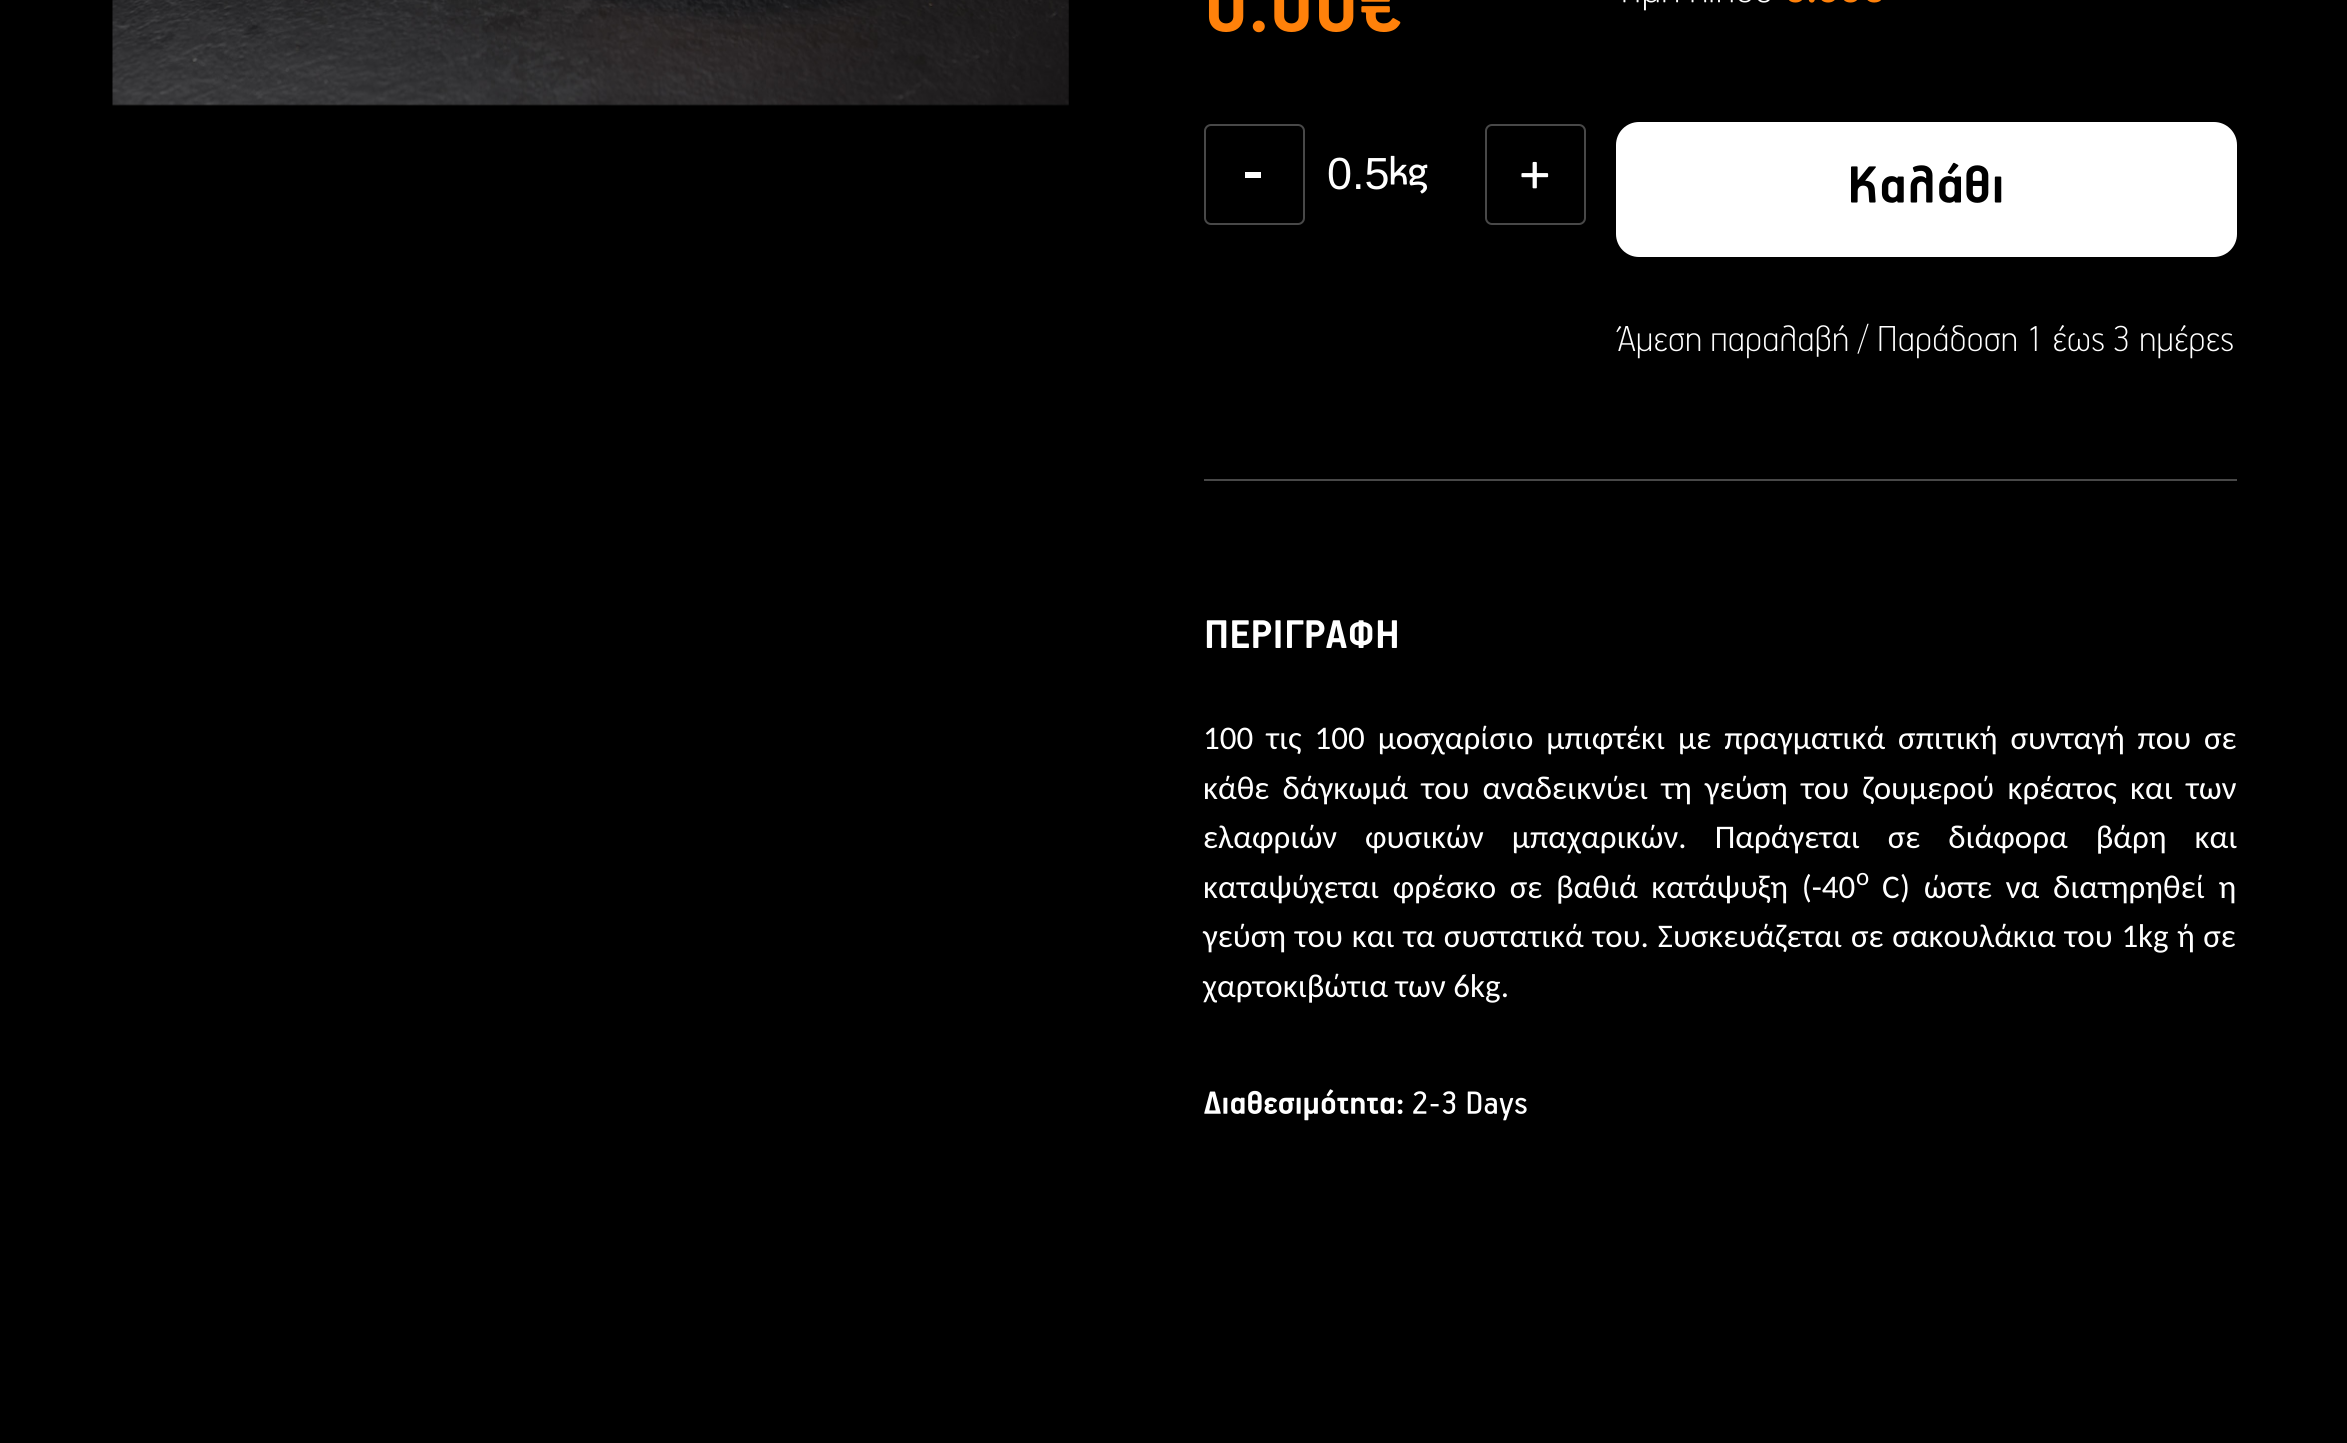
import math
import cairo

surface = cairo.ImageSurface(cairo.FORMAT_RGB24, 2347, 1443)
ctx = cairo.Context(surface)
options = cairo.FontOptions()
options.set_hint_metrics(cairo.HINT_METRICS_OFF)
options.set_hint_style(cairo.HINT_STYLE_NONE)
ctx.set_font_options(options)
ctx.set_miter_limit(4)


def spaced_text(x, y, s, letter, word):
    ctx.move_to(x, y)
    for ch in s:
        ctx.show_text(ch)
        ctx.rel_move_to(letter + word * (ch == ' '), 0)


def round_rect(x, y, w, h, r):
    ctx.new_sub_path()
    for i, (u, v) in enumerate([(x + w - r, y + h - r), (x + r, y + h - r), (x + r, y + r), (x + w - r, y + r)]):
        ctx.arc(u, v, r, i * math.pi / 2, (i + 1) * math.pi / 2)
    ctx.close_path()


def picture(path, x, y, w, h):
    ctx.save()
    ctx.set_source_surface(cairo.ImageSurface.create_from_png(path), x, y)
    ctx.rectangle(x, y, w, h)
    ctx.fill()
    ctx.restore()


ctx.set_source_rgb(0, 0, 0)
ctx.paint()
picture("img1.png", 112, 0, 957, 106)
picture("img2.png", 1208, 0, 193, 33)
round_rect(1205, 125, 99, 99, 6)
ctx.set_source_rgb(0.282, 0.282, 0.282)
ctx.stroke()
ctx.set_source_rgb(1, 1, 1)
ctx.rectangle(1245, 172, 16, 6)
ctx.fill()
ctx.select_font_face("Liberation Sans")
ctx.set_font_size(45)
ctx.move_to(1327, 189)
ctx.show_text("0.5")
picture("img3.png", 1390, 155, 38, 39)
round_rect(1486, 125, 99, 99, 6)
ctx.set_source_rgb(0.282, 0.282, 0.282)
ctx.stroke()
picture("img4.png", 1521, 161, 28, 28)
picture("img5.png", 1623, 0, 147, 11)
picture("img6.png", 1789, 0, 92, 3)
ctx.set_source_rgb(1, 1, 1)
round_rect(1616, 122, 621, 135, 23)
ctx.fill()
picture("img7.png", 1851, 162, 151, 41)
picture("img8.png", 1616, 323, 617, 36)
ctx.set_source_rgb(0.282, 0.282, 0.282)
ctx.rectangle(1204, 479, 1033, 2)
ctx.fill()
picture("img9.png", 1206, 620, 191, 28)
ctx.select_font_face("Carlito")
ctx.set_font_size(33)
ctx.set_source_rgb(1, 1, 1)
spaced_text(1203, 749, "100 τις 100 μοσχαρίσιο μπιφτέκι με πραγματικά σπιτική συνταγή που σε", 0, 5.5)
spaced_text(1203, 799, "κάθε δάγκωμά του αναδεικνύει τη γεύση του ζουμερού κρέατος και των", 0, 5.75)
spaced_text(1203, 848, "ελαφριών φυσικών μπαχαρικών. Παράγεται σε διάφορα βάρη και", 0, 20.5)
spaced_text(1203, 898, "καταψύχεται φρέσκο σε βαθιά κατάψυξη (-40", 0, 6.25)
ctx.set_font_size(25)
ctx.move_to(1856, 885)
ctx.show_text("ο")
ctx.set_font_size(33)
ctx.move_to(1882, 898)
ctx.show_text("C")
spaced_text(1900, 898, ") ώστε να διατηρηθεί η", 0, 6.25)
spaced_text(1203, 947, "γεύση του και τα συστατικά του. Συσκευάζεται σε σακουλάκια του 1", 0, 1.4)
ctx.move_to(2138, 947)
ctx.show_text("kg")
spaced_text(2177, 947, "ή σε", 0, 1)
ctx.move_to(1203, 997)
ctx.show_text("χαρτοκιβώτια των 6kg.")
picture("img10.png", 1204, 1089, 199, 32)
picture("img11.png", 1413, 1091, 114, 30)
surface.write_to_png("page.png")
